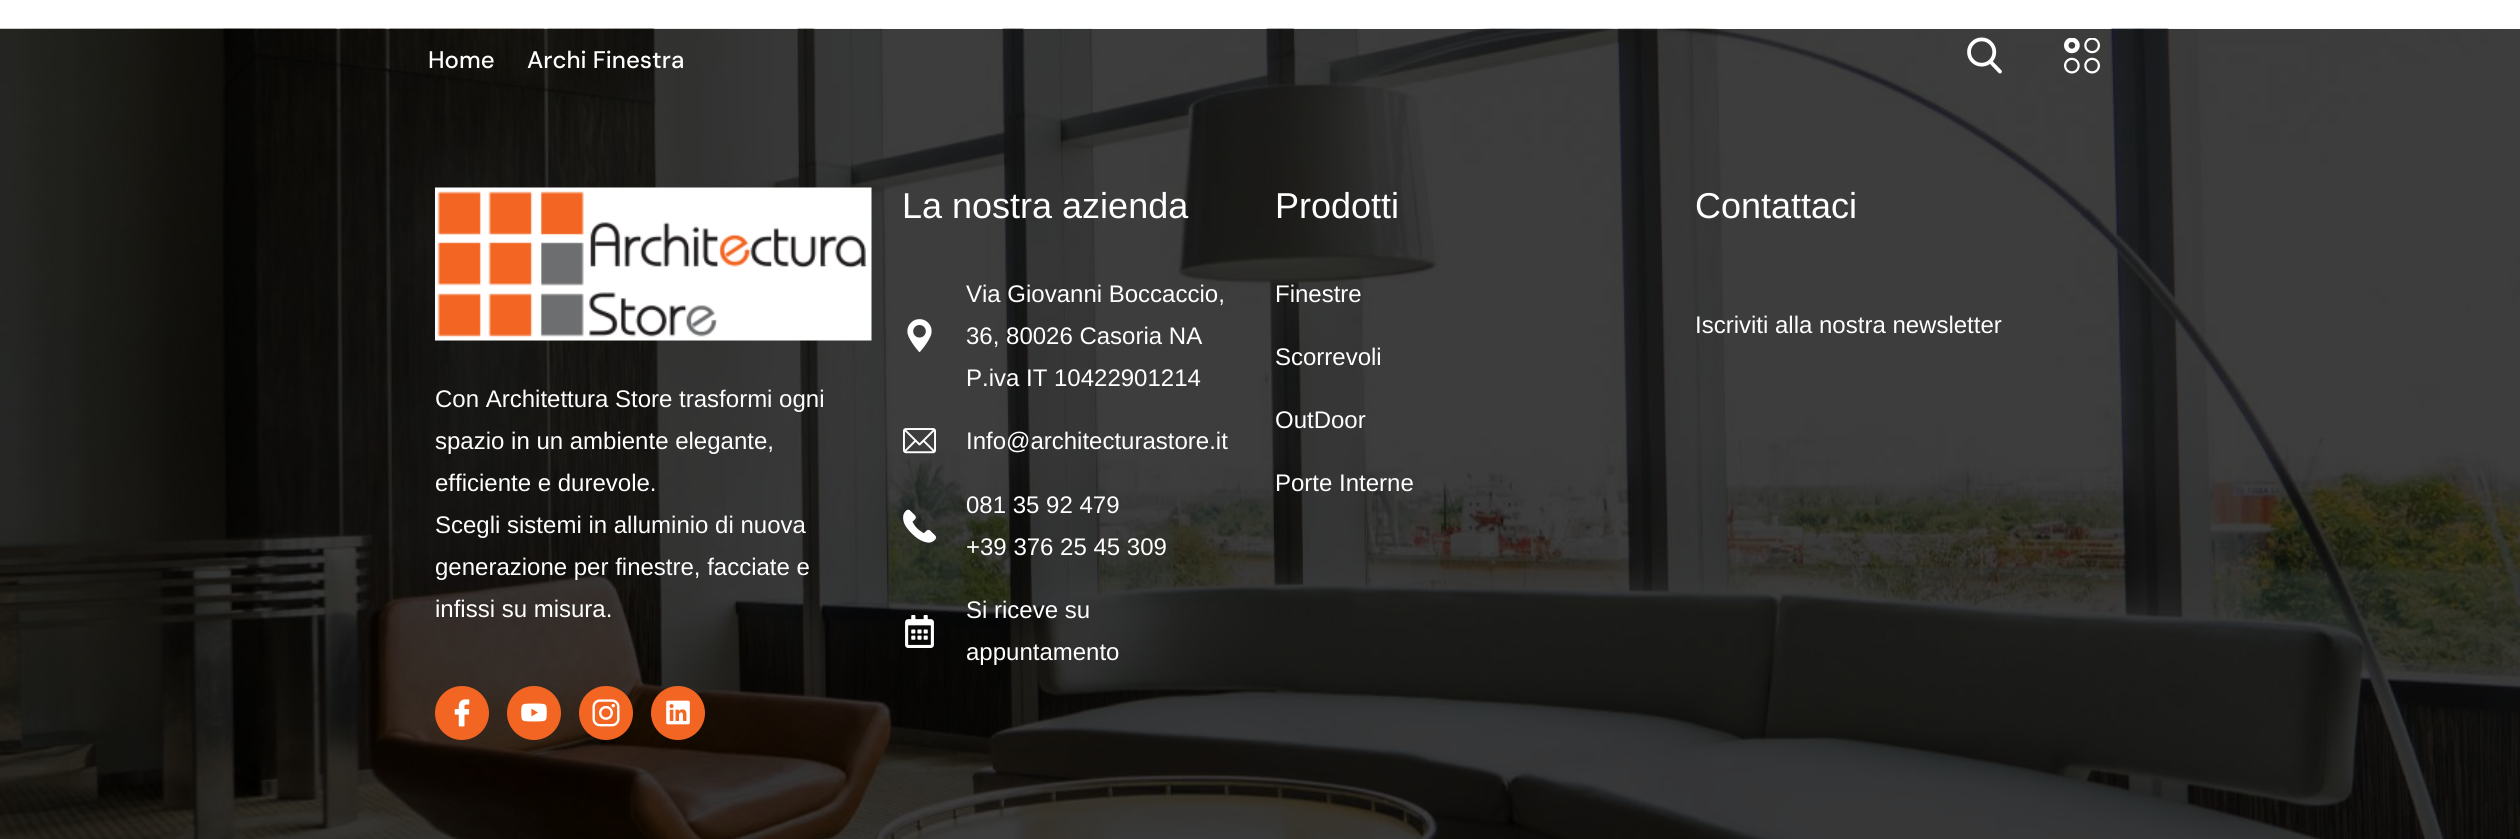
import math
import cairo

surface = cairo.ImageSurface(cairo.FORMAT_RGB24, 2520, 839)
ctx = cairo.Context(surface)
options = cairo.FontOptions()
options.set_hint_metrics(cairo.HINT_METRICS_OFF)
options.set_hint_style(cairo.HINT_STYLE_NONE)
ctx.set_font_options(options)
ctx.set_miter_limit(4)


def picture(path, x, y, w, h):
    ctx.save()
    ctx.set_source_surface(cairo.ImageSurface.create_from_png(path), x, y)
    ctx.rectangle(x, y, w, h)
    ctx.fill()
    ctx.restore()


ctx.set_source_rgb(1, 1, 1)
ctx.paint()
picture("img3.png", 0, 28, 2520, 811)
ctx.select_font_face("DM Sans Medium")
ctx.set_font_size(24)
ctx.set_source_rgb(1, 1, 1)
ctx.move_to(428, 68)
ctx.show_text("Home")
ctx.move_to(527, 68)
ctx.show_text("Archi Finestra")
picture("img1.png", 1967, 37, 35, 37)
picture("img2.png", 2064, 38, 36, 36)
ctx.select_font_face("Liberation Sans")
ctx.set_font_size(36)
ctx.move_to(902, 218)
ctx.show_text("La nostra azienda")
picture("img4.png", 907, 319, 25, 34)
ctx.set_font_size(24)
ctx.move_to(966, 302)
ctx.show_text("Via Giovanni Boccaccio,")
ctx.move_to(966, 344)
ctx.show_text("36, 80026 Casoria NA")
ctx.move_to(966, 386)
ctx.show_text("P.iva IT 10422901214")
picture("img5.png", 903, 428, 33, 26)
ctx.move_to(966, 449)
ctx.show_text("Info@architecturastore.it")
picture("img6.png", 903, 509, 33, 34)
ctx.move_to(966, 513)
ctx.show_text("081 35 92 479")
ctx.move_to(966, 555)
ctx.show_text("+39 376 25 45 309")
picture("img7.png", 905, 615, 29, 33)
ctx.move_to(966, 618)
ctx.show_text("Si riceve su")
ctx.move_to(966, 660)
ctx.show_text("appuntamento")
ctx.set_font_size(36)
ctx.move_to(1275, 218)
ctx.show_text("Prodotti")
ctx.set_font_size(24)
ctx.move_to(1275, 302)
ctx.show_text("Finestre")
ctx.move_to(1275, 365)
ctx.show_text("Scorrevoli")
ctx.move_to(1275, 428)
ctx.show_text("OutDoor")
ctx.move_to(1275, 491)
ctx.show_text("Porte Interne")
ctx.set_font_size(36)
ctx.move_to(1695, 218)
ctx.show_text("Contattaci")
ctx.set_font_size(24)
ctx.move_to(1695, 333)
ctx.show_text("Iscriviti alla nostra newsletter")
picture("img8.png", 435, 187, 437, 154)
ctx.move_to(435, 407)
ctx.show_text("Con Architettura Store trasformi ogni")
ctx.move_to(435, 449)
ctx.show_text("spazio in un ambiente elegante,")
ctx.move_to(435, 491)
ctx.show_text("efficiente e durevole.")
ctx.move_to(435, 533)
ctx.show_text("Scegli sistemi in alluminio di nuova")
ctx.move_to(435, 575)
ctx.show_text("generazione per finestre, facciate e")
ctx.move_to(435, 617)
ctx.show_text("infissi su misura.")
ctx.set_source_rgb(0.949, 0.396, 0.133)
ctx.new_path()
ctx.arc(462, 713, 27, 0, 2 * math.pi)
ctx.fill()
picture("img9.png", 454, 699, 16, 28)
ctx.arc(534, 713, 27, 0, 2 * math.pi)
ctx.fill()
picture("img10.png", 521, 703, 26, 19)
ctx.arc(606, 713, 27, 0, 2 * math.pi)
ctx.fill()
picture("img11.png", 592, 699, 28, 28)
ctx.arc(678, 713, 27, 0, 2 * math.pi)
ctx.fill()
picture("img12.png", 666, 700, 24, 25)
surface.write_to_png("page.png")
